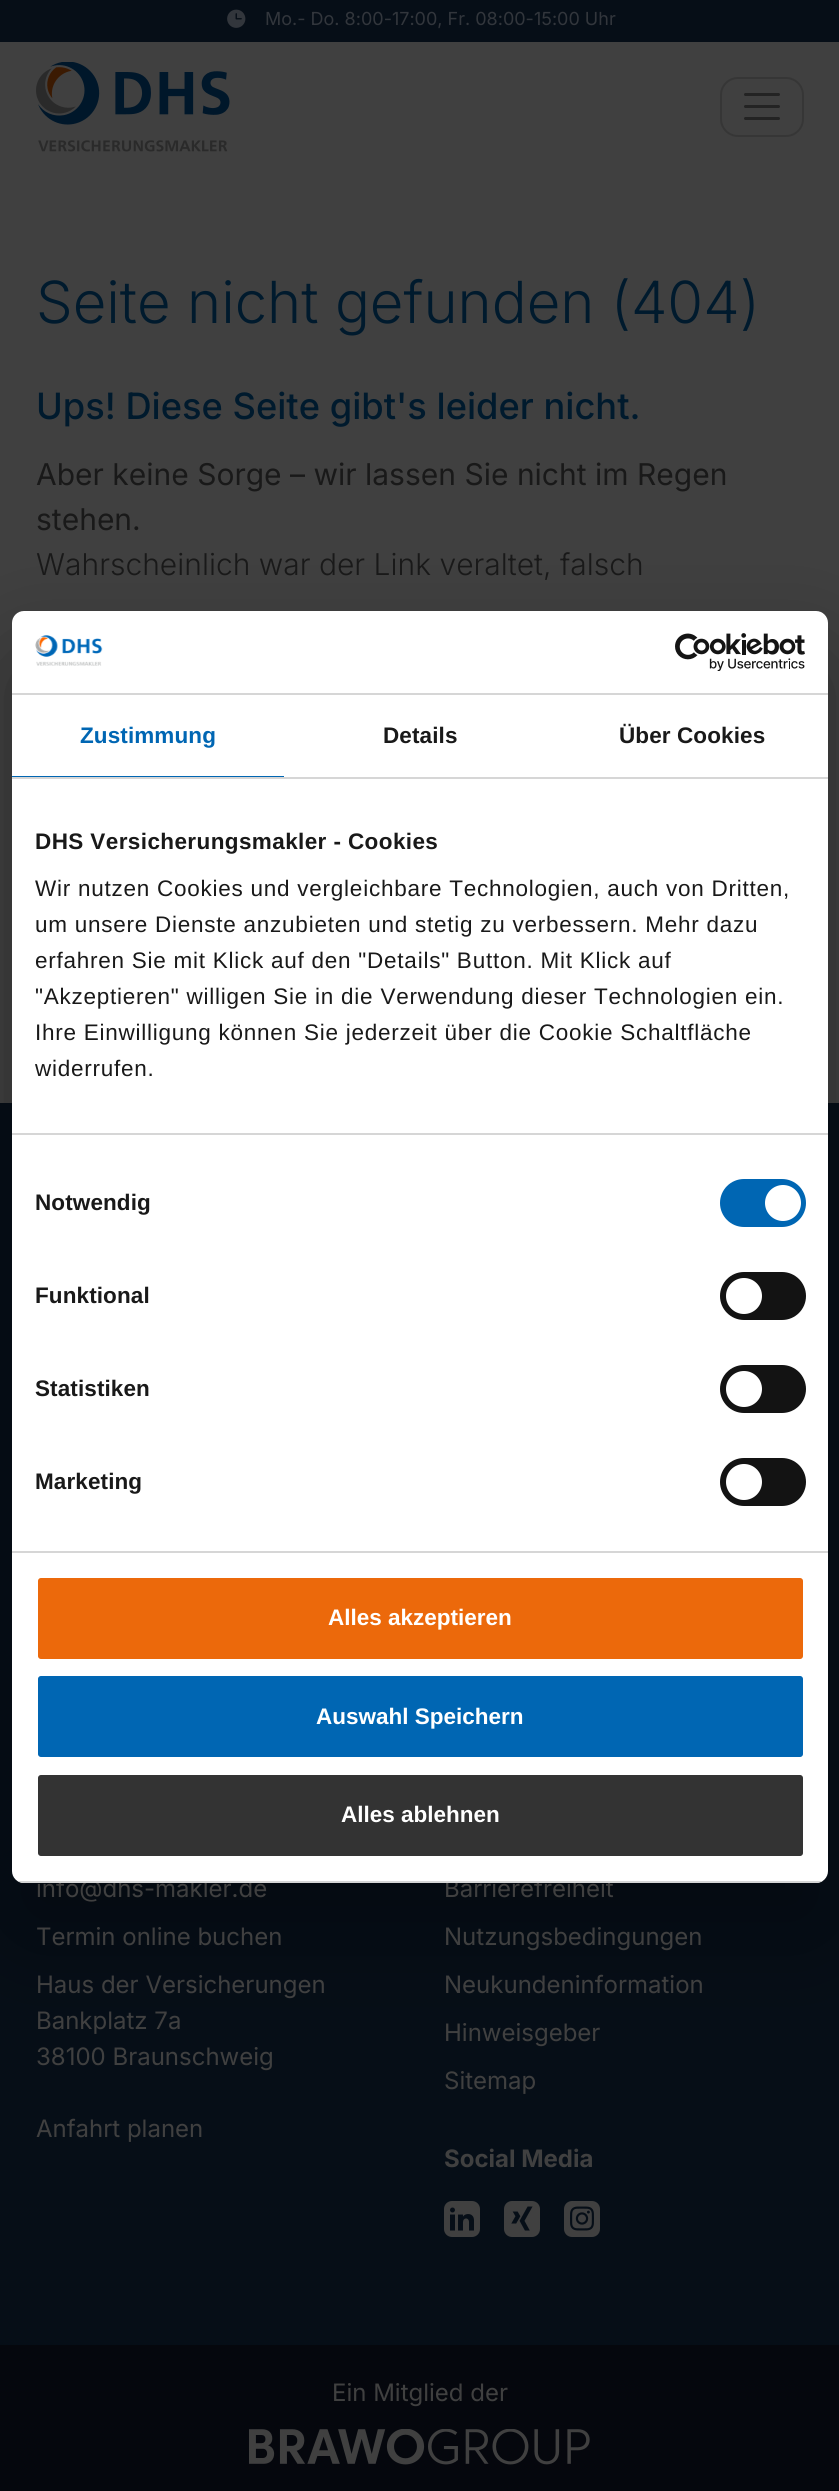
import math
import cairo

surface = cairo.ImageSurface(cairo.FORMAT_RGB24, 839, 2491)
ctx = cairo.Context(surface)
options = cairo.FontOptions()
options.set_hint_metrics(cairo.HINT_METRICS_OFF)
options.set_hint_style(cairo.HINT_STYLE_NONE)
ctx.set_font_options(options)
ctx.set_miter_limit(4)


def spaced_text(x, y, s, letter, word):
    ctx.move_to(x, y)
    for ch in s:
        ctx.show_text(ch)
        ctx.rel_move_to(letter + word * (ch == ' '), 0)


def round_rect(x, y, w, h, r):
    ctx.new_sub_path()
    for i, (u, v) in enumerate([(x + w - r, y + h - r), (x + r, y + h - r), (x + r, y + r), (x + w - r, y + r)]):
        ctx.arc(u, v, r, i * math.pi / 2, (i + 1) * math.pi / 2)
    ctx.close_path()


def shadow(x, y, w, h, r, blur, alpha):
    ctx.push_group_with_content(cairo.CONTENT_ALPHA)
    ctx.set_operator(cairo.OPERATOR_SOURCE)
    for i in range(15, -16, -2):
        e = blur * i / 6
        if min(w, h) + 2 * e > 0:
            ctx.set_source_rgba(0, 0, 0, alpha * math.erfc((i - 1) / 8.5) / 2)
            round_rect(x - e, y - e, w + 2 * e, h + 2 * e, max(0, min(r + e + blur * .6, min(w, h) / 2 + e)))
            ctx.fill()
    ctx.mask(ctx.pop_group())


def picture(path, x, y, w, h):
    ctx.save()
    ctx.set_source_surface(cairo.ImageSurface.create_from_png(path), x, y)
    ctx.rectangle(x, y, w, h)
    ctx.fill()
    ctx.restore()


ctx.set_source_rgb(0.024, 0.055, 0.09)
ctx.paint()
picture("img1.png", 227, 9, 19, 19)
ctx.select_font_face("Inter")
ctx.set_font_size(18)
ctx.set_source_rgb(0.196, 0.212, 0.235)
ctx.move_to(265, 25)
ctx.show_text("Mo.- Do. 8:00-17:00, Fr. 08:00-15:00 Uhr")
ctx.set_source_rgb(0.251, 0.251, 0.251)
ctx.rectangle(0, 42, 839, 1061)
ctx.fill()
picture("img2.png", 36, 62, 194, 90)
round_rect(721, 78, 82, 58, 17)
ctx.set_source_rgb(0.212, 0.212, 0.212)
ctx.stroke()
ctx.new_path()
ctx.move_to(745.5, 94.5)
ctx.line_to(778.5, 94.5)
ctx.move_to(745.5, 106.5)
ctx.line_to(778.5, 106.5)
ctx.move_to(745.5, 118.5)
ctx.line_to(778.5, 118.5)
ctx.set_source_rgb(0.137, 0.137, 0.137)
ctx.set_line_width(3)
ctx.set_line_cap(cairo.LINE_CAP_ROUND)
ctx.stroke()
ctx.select_font_face("Inter Light")
ctx.set_font_size(58)
ctx.set_source_rgb(0, 0.102, 0.176)
ctx.move_to(36, 323)
ctx.show_text("Seite nicht gefunden (404)")
ctx.select_font_face("Inter Medium")
ctx.set_font_size(36.25)
ctx.move_to(36, 419)
ctx.show_text("Ups! Diese Seite gibt's leider nicht.")
ctx.select_font_face("Inter")
ctx.set_font_size(30)
ctx.set_source_rgb(0.098, 0.098, 0.098)
ctx.move_to(36, 485)
ctx.show_text("Aber keine Sorge – wir lassen Sie nicht im Regen")
ctx.move_to(36, 530)
ctx.show_text("stehen.")
ctx.select_font_face("Inter Light")
ctx.move_to(36, 575)
ctx.show_text("Wahrscheinlich war der Link veraltet, falsch")
ctx.set_source_rgb(0, 0, 0)
shadow(12, 659, 816, 1272, 12, 51, 0.3)
ctx.select_font_face("Inter")
ctx.set_font_size(24)
ctx.set_source_rgb(0.251, 0.251, 0.251)
ctx.move_to(36, 1897)
ctx.show_text("info@dhs-makler.de")
ctx.move_to(444, 1897)
ctx.show_text("Barrierefreiheit")
ctx.set_source_rgb(1, 1, 1)
round_rect(12, 611, 816, 1272, 12)
ctx.fill()
ctx.set_source_rgb(0.839, 0.839, 0.839)
ctx.rectangle(12, 693, 816, 2)
ctx.fill()
picture("img3.png", 35, 635, 68, 31)
picture("img4.png", 675, 633, 130, 38)
ctx.rectangle(12, 777, 816, 2)
ctx.fill()
ctx.set_source_rgb(0, 0.4, 0.702)
ctx.rectangle(12, 776, 272, 1)
ctx.fill()
ctx.select_font_face("Liberation Sans", cairo.FONT_SLANT_NORMAL, cairo.FONT_WEIGHT_BOLD)
ctx.set_font_size(22.5)
spaced_text(80, 743, "Zustimmung", 0.1, 0)
ctx.set_source_rgb(0.098, 0.098, 0.098)
spaced_text(383, 743, "Details", 0.1, 0)
spaced_text(619, 743, "Über Cookies", 0.1, 0)
ctx.set_source_rgb(0.839, 0.839, 0.839)
ctx.rectangle(12, 1133, 816, 2)
ctx.fill()
ctx.set_source_rgb(0.098, 0.098, 0.098)
spaced_text(35, 849, "DHS Versicherungsmakler - Cookies", 0.4, 0)
ctx.select_font_face("Liberation Sans")
spaced_text(35, 896, "Wir nutzen Cookies und vergleichbare Technologien, auch von Dritten,", 0.75, 0)
spaced_text(35, 932, "um unsere Dienste anzubieten und stetig zu verbessern. Mehr dazu", 0.75, 0)
spaced_text(35, 968, "erfahren Sie mit Klick auf den \"Details\" Button. Mit Klick auf", 0.75, 0)
spaced_text(35, 1004, "\"Akzeptieren\" willigen Sie in die Verwendung dieser Technologien ein.", 0.75, 0)
spaced_text(35, 1040, "Ihre Einwilligung können Sie jederzeit über die Cookie Schaltfläche", 0.75, 0)
spaced_text(35, 1076, "widerrufen.", 0.75, 0)
ctx.set_source_rgb(0.839, 0.839, 0.839)
ctx.rectangle(12, 1551, 816, 2)
ctx.fill()
ctx.select_font_face("Liberation Sans", cairo.FONT_SLANT_NORMAL, cairo.FONT_WEIGHT_BOLD)
ctx.set_source_rgb(0.098, 0.098, 0.098)
spaced_text(35, 1210, "Notwendig", 0.1, 0)
ctx.set_source_rgb(0, 0.4, 0.702)
round_rect(720, 1179, 86, 48, 24)
ctx.fill()
ctx.set_source_rgb(1, 1, 1)
ctx.arc(783, 1203, 18, 0, 2 * math.pi)
ctx.fill()
ctx.set_source_rgb(0.098, 0.098, 0.098)
spaced_text(35, 1303, "Funktional", 0.1, 0)
ctx.set_source_rgb(0.078, 0.078, 0.078)
round_rect(720, 1272, 86, 48, 24)
ctx.fill()
ctx.set_source_rgb(1, 1, 1)
ctx.arc(744, 1296, 18, 0, 2 * math.pi)
ctx.fill()
ctx.set_source_rgb(0.098, 0.098, 0.098)
spaced_text(35, 1396, "Statistiken", 0.1, 0)
ctx.set_source_rgb(0.078, 0.078, 0.078)
round_rect(720, 1365, 86, 48, 24)
ctx.fill()
ctx.set_source_rgb(1, 1, 1)
ctx.arc(744, 1389, 18, 0, 2 * math.pi)
ctx.fill()
ctx.set_source_rgb(0.098, 0.098, 0.098)
spaced_text(35, 1489, "Marketing", 0.1, 0)
ctx.set_source_rgb(0.078, 0.078, 0.078)
round_rect(720, 1458, 86, 48, 24)
ctx.fill()
ctx.set_source_rgb(1, 1, 1)
ctx.arc(744, 1482, 18, 0, 2 * math.pi)
ctx.fill()
ctx.save()
round_rect(12, 611, 816, 1272, 12)
ctx.clip()
ctx.set_source_rgb(0.839, 0.839, 0.839)
ctx.rectangle(12, 1881, 816, 2)
ctx.fill()
ctx.restore()
ctx.set_source_rgb(0.922, 0.412, 0.043)
round_rect(36.5, 1576.5, 768, 84, 4.5)
ctx.fill_preserve()
ctx.set_source_rgb(1, 1, 1)
ctx.set_line_cap(cairo.LINE_CAP_BUTT)
ctx.stroke()
ctx.move_to(328, 1625)
ctx.show_text("Alles akzeptieren")
ctx.set_source_rgb(0, 0.4, 0.702)
round_rect(36.5, 1674.5, 768, 84, 4.5)
ctx.fill_preserve()
ctx.set_source_rgb(1, 1, 1)
ctx.stroke()
ctx.move_to(316, 1724)
ctx.show_text("Auswahl Speichern")
ctx.set_source_rgb(0.2, 0.2, 0.2)
round_rect(36.5, 1773.5, 768, 84, 4.5)
ctx.fill_preserve()
ctx.set_source_rgb(1, 1, 1)
ctx.stroke()
ctx.move_to(341, 1822)
ctx.show_text("Alles ablehnen")
ctx.select_font_face("Inter")
ctx.set_font_size(24)
ctx.set_source_rgb(0.251, 0.251, 0.251)
ctx.move_to(36, 1945)
ctx.show_text("Termin online buchen")
ctx.move_to(36, 1993)
ctx.show_text("Haus der Versicherungen")
ctx.move_to(36, 2029)
ctx.show_text("Bankplatz 7a")
ctx.move_to(36, 2065)
ctx.show_text("38100 Braunschweig")
ctx.move_to(36, 2137)
ctx.show_text("Anfahrt planen")
ctx.move_to(444, 1945)
ctx.show_text("Nutzungsbedingungen")
ctx.move_to(444, 1993)
ctx.show_text("Neukundeninformation")
ctx.move_to(444, 2041)
ctx.show_text("Hinweisgeber")
ctx.move_to(444, 2089)
ctx.show_text("Sitemap")
ctx.select_font_face("Inter", cairo.FONT_SLANT_NORMAL, cairo.FONT_WEIGHT_BOLD)
ctx.move_to(444, 2167)
ctx.show_text("Social Media")
round_rect(444, 2201, 36, 36, 8)
ctx.fill()
picture("img5.png", 450, 2207, 24, 24)
round_rect(504, 2201, 36, 36, 8)
ctx.fill()
picture("img6.png", 511, 2206, 22, 25)
round_rect(564, 2201, 36, 36, 8)
ctx.fill()
picture("img7.png", 570, 2206, 24, 25)
ctx.set_source_rgb(0.02, 0.031, 0.051)
ctx.rectangle(0, 2345, 839, 146)
ctx.fill()
ctx.select_font_face("Inter")
ctx.set_source_rgb(0.251, 0.251, 0.251)
ctx.move_to(332, 2401)
ctx.show_text("Ein Mitglied der")
picture("img8.png", 249, 2429, 341, 36)
surface.write_to_png("page.png")
